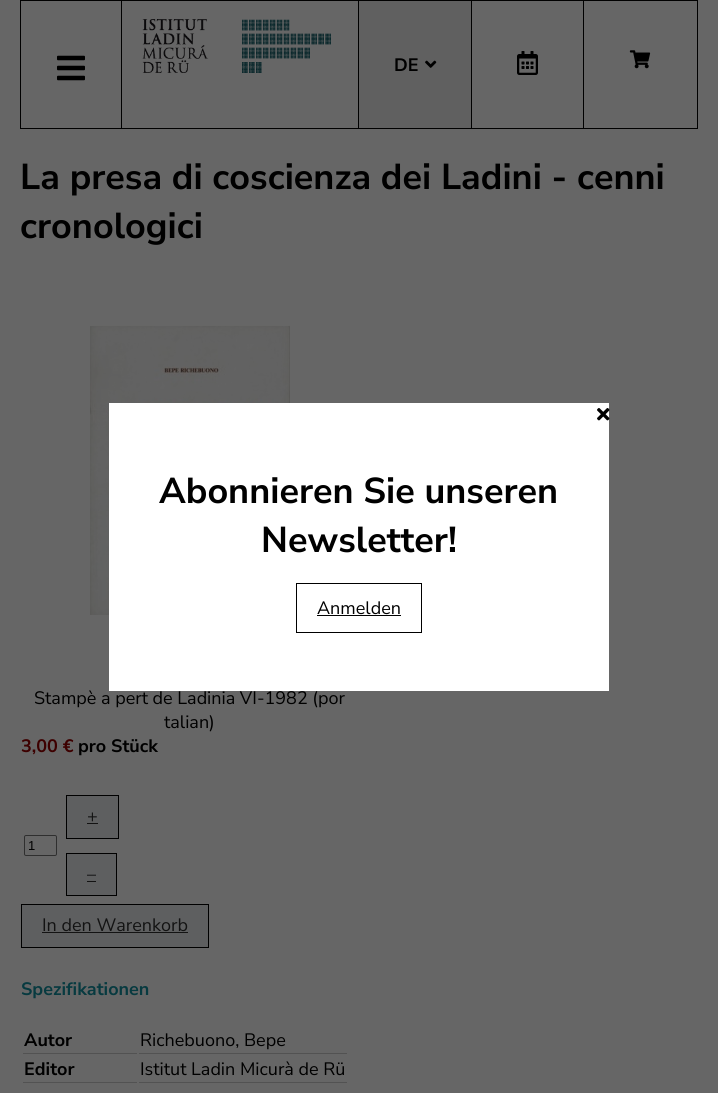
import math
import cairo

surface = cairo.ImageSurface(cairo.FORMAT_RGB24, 718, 1093)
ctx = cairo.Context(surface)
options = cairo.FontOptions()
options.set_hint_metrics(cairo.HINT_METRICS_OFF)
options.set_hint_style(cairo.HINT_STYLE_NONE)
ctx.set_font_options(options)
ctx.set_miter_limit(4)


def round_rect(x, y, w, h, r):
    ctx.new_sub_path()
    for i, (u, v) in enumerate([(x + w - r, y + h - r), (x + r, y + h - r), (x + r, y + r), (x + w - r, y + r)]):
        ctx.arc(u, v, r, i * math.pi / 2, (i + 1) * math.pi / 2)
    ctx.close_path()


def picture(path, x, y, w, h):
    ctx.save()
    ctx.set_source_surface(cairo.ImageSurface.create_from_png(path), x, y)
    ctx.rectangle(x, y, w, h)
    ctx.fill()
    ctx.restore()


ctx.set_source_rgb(0.4, 0.4, 0.4)
ctx.paint()
ctx.rectangle(20.5, 0.5, 677, 128)
ctx.set_source_rgb(0, 0, 0)
ctx.set_line_width(1)
ctx.stroke()
ctx.rectangle(358, 1, 1, 127)
ctx.fill()
ctx.rectangle(121, 1, 1, 127)
ctx.fill()
picture("img1.png", 57, 55, 28, 26)
picture("img2.png", 142, 19, 189, 54)
ctx.rectangle(471, 1, 1, 127)
ctx.fill()
ctx.set_source_rgb(0.376, 0.376, 0.376)
ctx.rectangle(359, 1, 112, 127)
ctx.fill()
ctx.select_font_face("Nunito Sans", cairo.FONT_SLANT_NORMAL, cairo.FONT_WEIGHT_BOLD)
ctx.set_font_size(18)
ctx.set_source_rgb(0, 0, 0)
ctx.move_to(394, 71)
ctx.show_text("DE")
picture("img3.png", 425, 60, 12, 8)
ctx.rectangle(583, 1, 1, 127)
ctx.fill()
picture("img4.png", 517, 51, 21, 24)
picture("img5.png", 629, 50, 22, 19)
ctx.set_font_size(36)
ctx.move_to(20, 189)
ctx.show_text("La presa di coscienza dei Ladini - cenni")
ctx.move_to(20, 238)
ctx.show_text("cronologici")
picture("img6.png", 90, 325, 200, 290)
ctx.select_font_face("Nunito Sans")
ctx.set_font_size(18)
ctx.move_to(34, 704)
ctx.show_text("Stampè a pert de Ladinia VI-1982 (por")
ctx.move_to(164, 728)
ctx.show_text("talian)")
ctx.select_font_face("Nunito Sans", cairo.FONT_SLANT_NORMAL, cairo.FONT_WEIGHT_BOLD)
ctx.set_source_rgb(0.239, 0, 0)
ctx.move_to(21, 752)
ctx.show_text("3,00 €")
ctx.set_source_rgb(0, 0, 0)
ctx.move_to(78, 752)
ctx.show_text("pro Stück")
ctx.set_source_rgb(0.369, 0.373, 0.376)
ctx.rectangle(66.5, 795.5, 52, 43)
ctx.fill_preserve()
ctx.set_source_rgb(0, 0, 0)
ctx.stroke()
ctx.select_font_face("Nunito Sans")
ctx.set_source_rgb(0.078, 0.078, 0.078)
ctx.move_to(87, 822)
ctx.show_text("+")
ctx.rectangle(87, 823, 11, 1)
ctx.fill()
round_rect(24.5, 835.5, 32, 20, 1.5)
ctx.set_source_rgb(0.184, 0.184, 0.184)
ctx.stroke()
ctx.select_font_face("Liberation Sans")
ctx.set_font_size(13)
ctx.set_source_rgb(0, 0, 0)
ctx.move_to(28, 850)
ctx.show_text("1")
ctx.set_source_rgb(0.369, 0.373, 0.376)
ctx.rectangle(66.5, 853.5, 50, 42)
ctx.fill_preserve()
ctx.set_source_rgb(0, 0, 0)
ctx.stroke()
ctx.select_font_face("Nunito Sans")
ctx.set_font_size(18)
ctx.set_source_rgb(0.078, 0.078, 0.078)
ctx.move_to(87, 880)
ctx.show_text("–")
ctx.rectangle(87, 881, 9, 1)
ctx.fill()
ctx.set_source_rgb(0.369, 0.373, 0.376)
ctx.rectangle(21.5, 904.5, 187, 43)
ctx.fill_preserve()
ctx.set_source_rgb(0, 0, 0)
ctx.stroke()
ctx.set_source_rgb(0.078, 0.078, 0.078)
ctx.move_to(42, 931)
ctx.show_text("In den Warenkorb")
ctx.rectangle(42, 932, 146, 1)
ctx.fill()
ctx.select_font_face("Nunito Sans", cairo.FONT_SLANT_NORMAL, cairo.FONT_WEIGHT_BOLD)
ctx.set_source_rgb(0.031, 0.227, 0.251)
ctx.move_to(21, 995)
ctx.show_text("Spezifikationen")
ctx.set_source_rgb(0.322, 0.322, 0.322)
ctx.rectangle(23, 1053, 114, 1)
ctx.fill()
ctx.set_source_rgb(0, 0, 0)
ctx.move_to(24, 1046)
ctx.show_text("Autor")
ctx.set_source_rgb(0.322, 0.322, 0.322)
ctx.rectangle(139, 1053, 208, 1)
ctx.fill()
ctx.select_font_face("Nunito Sans")
ctx.set_source_rgb(0, 0, 0)
ctx.move_to(140, 1046)
ctx.show_text("Richebuono, Bepe")
ctx.set_source_rgb(0.322, 0.322, 0.322)
ctx.rectangle(23, 1082, 114, 1)
ctx.fill()
ctx.select_font_face("Nunito Sans", cairo.FONT_SLANT_NORMAL, cairo.FONT_WEIGHT_BOLD)
ctx.set_source_rgb(0, 0, 0)
ctx.move_to(24, 1075)
ctx.show_text("Editor")
ctx.set_source_rgb(0.322, 0.322, 0.322)
ctx.rectangle(139, 1082, 208, 1)
ctx.fill()
ctx.select_font_face("Nunito Sans")
ctx.set_source_rgb(0, 0, 0)
ctx.move_to(140, 1075)
ctx.show_text("Istitut Ladin Micurà de Rü")
ctx.set_source_rgb(1, 1, 1)
ctx.rectangle(109, 403, 500, 288)
ctx.fill()
picture("img7.png", 597, 408, 13, 13)
ctx.select_font_face("Nunito Sans", cairo.FONT_SLANT_NORMAL, cairo.FONT_WEIGHT_BOLD)
ctx.set_font_size(36)
ctx.set_source_rgb(0, 0, 0)
ctx.move_to(159, 503)
ctx.show_text("Abonnieren Sie unseren")
ctx.move_to(261, 552)
ctx.show_text("Newsletter!")
ctx.rectangle(296.5, 583.5, 125, 49)
ctx.stroke()
ctx.select_font_face("Nunito Sans")
ctx.set_font_size(18)
ctx.move_to(317, 614)
ctx.show_text("Anmelden")
ctx.rectangle(317, 615, 84, 1)
ctx.fill()
surface.write_to_png("page.png")
